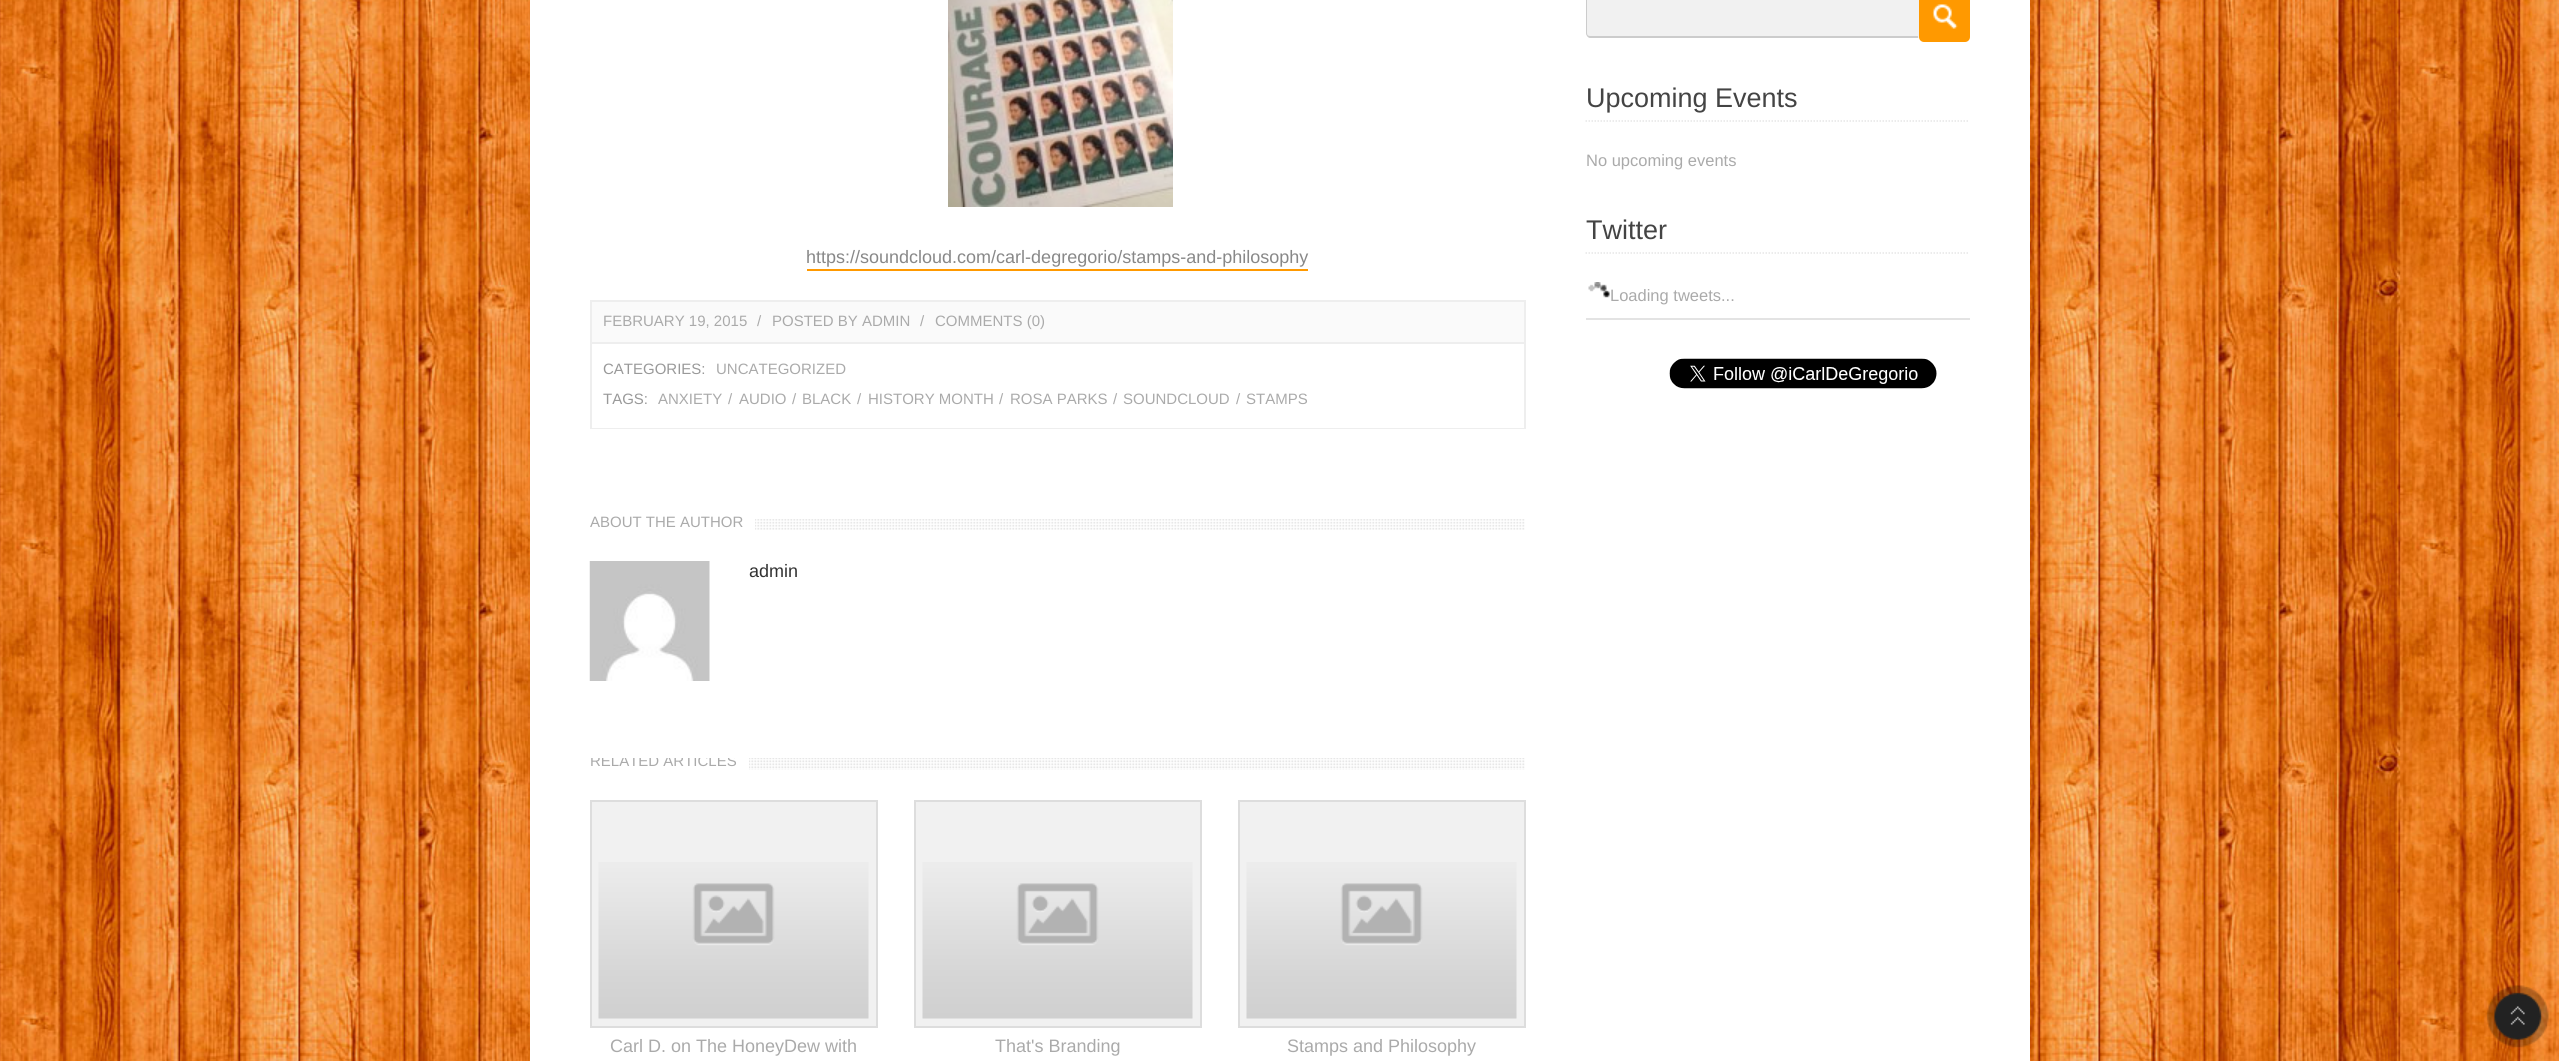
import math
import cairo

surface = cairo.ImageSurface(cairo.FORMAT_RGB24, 2559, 1061)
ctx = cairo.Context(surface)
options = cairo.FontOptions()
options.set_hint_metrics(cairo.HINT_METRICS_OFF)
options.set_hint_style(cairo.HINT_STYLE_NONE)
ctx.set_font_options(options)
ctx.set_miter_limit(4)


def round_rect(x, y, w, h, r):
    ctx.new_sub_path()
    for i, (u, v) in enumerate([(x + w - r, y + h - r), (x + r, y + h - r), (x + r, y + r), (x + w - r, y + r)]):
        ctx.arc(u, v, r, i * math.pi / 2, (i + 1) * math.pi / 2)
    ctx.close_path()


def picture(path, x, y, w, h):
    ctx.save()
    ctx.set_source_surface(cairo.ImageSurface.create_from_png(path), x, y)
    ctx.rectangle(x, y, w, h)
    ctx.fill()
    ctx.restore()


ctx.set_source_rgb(1, 1, 1)
ctx.paint()
picture("img1.png", 0, 0, 2559, 1061)
ctx.set_source_rgb(1, 1, 1)
ctx.rectangle(530, 0, 1500, 1061)
ctx.fill()
ctx.set_source_rgb(0.945, 0.945, 0.945)
ctx.new_path()
ctx.move_to(1591, -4)
ctx.line_to(1919, -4)
ctx.line_to(1919, 38)
ctx.line_to(1591, 38)
ctx.curve_to(1588, 38, 1586, 36, 1586, 33)
ctx.line_to(1586, 1)
ctx.curve_to(1586, -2, 1588, -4, 1591, -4)
ctx.close_path()
ctx.fill()
ctx.set_source_rgb(0.8, 0.8, 0.8)
ctx.set_fill_rule(cairo.FILL_RULE_EVEN_ODD)
ctx.new_path()
ctx.move_to(1590, -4)
ctx.line_to(1918, -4)
ctx.line_to(1918, 38)
ctx.line_to(1590, 38)
ctx.curve_to(1588, 38, 1586, 35, 1586, 33)
ctx.line_to(1586, 0)
ctx.curve_to(1586, -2, 1588, -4, 1590, -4)
ctx.close_path()
ctx.move_to(1590, -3)
ctx.line_to(1918, -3)
ctx.line_to(1918, 36)
ctx.line_to(1590, 36)
ctx.curve_to(1588, 36, 1587, 35, 1587, 33)
ctx.line_to(1587, 0)
ctx.curve_to(1587, -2, 1588, -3, 1590, -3)
ctx.close_path()
ctx.fill()
ctx.set_source_rgb(1, 0.6, 0)
round_rect(1919, -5, 51, 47, 5)
ctx.fill()
picture("img2.png", 1932, 4, 26, 25)
ctx.new_path()
ctx.move_to(1585.5, 121)
ctx.line_to(1969.5, 121)
ctx.set_source_rgb(0.902, 0.902, 0.902)
ctx.set_line_width(1.5)
ctx.set_dash([1.5, 1.5])
ctx.stroke()
ctx.select_font_face("Liberation Sans")
ctx.set_font_size(27)
ctx.set_source_rgb(0.267, 0.267, 0.267)
ctx.move_to(1586, 107)
ctx.show_text("Upcoming Events")
ctx.set_font_size(16.5)
ctx.set_source_rgb(0.667, 0.667, 0.667)
ctx.move_to(1586, 166)
ctx.show_text("No upcoming events")
ctx.new_path()
ctx.move_to(1585.5, 253)
ctx.line_to(1969.5, 253)
ctx.set_source_rgb(0.902, 0.902, 0.902)
ctx.stroke()
ctx.set_font_size(27)
ctx.set_source_rgb(0.267, 0.267, 0.267)
ctx.move_to(1586, 239)
ctx.show_text("Twitter")
ctx.set_source_rgb(0.89, 0.89, 0.89)
ctx.rectangle(1586, 318, 384, 2)
ctx.fill()
picture("img3.png", 1588, 282, 22, 16)
ctx.set_font_size(16.5)
ctx.set_source_rgb(0.667, 0.667, 0.667)
ctx.move_to(1610, 301)
ctx.show_text("Loading tweets...")
picture("img4.png", 1669, 358, 268, 31)
picture("img5.png", 948, 0, 225, 207)
ctx.set_font_size(18)
ctx.set_source_rgb(0.533, 0.533, 0.533)
ctx.move_to(806, 263)
ctx.show_text("https://soundcloud.com/carl-degregorio/stamps-and-philosophy")
ctx.set_source_rgb(1, 0.6, 0)
ctx.rectangle(807, 269, 501, 2)
ctx.fill()
ctx.set_source_rgb(0.98, 0.98, 0.98)
ctx.rectangle(591, 301, 934, 42)
ctx.fill_preserve()
ctx.set_source_rgb(0.933, 0.933, 0.933)
ctx.set_line_width(2)
ctx.set_dash([])
ctx.stroke()
ctx.set_font_size(15)
ctx.set_source_rgb(0.667, 0.667, 0.667)
ctx.move_to(603, 326)
ctx.show_text("FEBRUARY 19, 2015")
ctx.move_to(757, 326)
ctx.show_text("/")
ctx.move_to(772, 326)
ctx.show_text("POSTED BY ADMIN")
ctx.move_to(920, 326)
ctx.show_text("/")
ctx.move_to(935, 326)
ctx.show_text("COMMENTS (0)")
ctx.set_source_rgb(0.933, 0.933, 0.933)
ctx.rectangle(1524, 344, 2, 85)
ctx.fill()
ctx.rectangle(590, 428, 936, 1)
ctx.fill()
ctx.rectangle(590, 344, 2, 85)
ctx.fill()
ctx.set_source_rgb(0.6, 0.6, 0.6)
ctx.move_to(603, 374)
ctx.show_text("CATEGORIES:")
ctx.set_source_rgb(0.667, 0.667, 0.667)
ctx.move_to(716, 374)
ctx.show_text("UNCATEGORIZED")
ctx.set_source_rgb(0.6, 0.6, 0.6)
ctx.move_to(603, 404)
ctx.show_text("TAGS:")
ctx.set_source_rgb(0.667, 0.667, 0.667)
ctx.move_to(658, 404)
ctx.show_text("ANXIETY")
ctx.move_to(728, 404)
ctx.show_text("/")
ctx.move_to(739, 404)
ctx.show_text("AUDIO")
ctx.move_to(792, 404)
ctx.show_text("/")
ctx.move_to(802, 404)
ctx.show_text("BLACK")
ctx.move_to(857, 404)
ctx.show_text("/")
ctx.move_to(868, 404)
ctx.show_text("HISTORY MONTH")
ctx.move_to(999, 404)
ctx.show_text("/")
ctx.move_to(1010, 404)
ctx.show_text("ROSA PARKS")
ctx.move_to(1113, 404)
ctx.show_text("/")
ctx.move_to(1123, 404)
ctx.show_text("SOUNDCLOUD")
ctx.move_to(1236, 404)
ctx.show_text("/")
ctx.move_to(1246, 404)
ctx.show_text("STAMPS")
picture("img6.png", 755, 519, 770, 11)
ctx.move_to(590, 527)
ctx.show_text("ABOUT THE AUTHOR")
picture("img7.png", 589, 561, 121, 120)
ctx.set_font_size(18)
ctx.set_source_rgb(0.2, 0.2, 0.2)
ctx.move_to(749, 577)
ctx.show_text("admin")
picture("img8.png", 749, 758, 776, 12)
ctx.save()
ctx.set_fill_rule(cairo.FILL_RULE_WINDING)
ctx.rectangle(590, 758, 936, 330)
ctx.clip()
ctx.set_font_size(15)
ctx.set_source_rgb(0.667, 0.667, 0.667)
ctx.move_to(590, 766)
ctx.show_text("RELATED ARTICLES")
ctx.restore()
ctx.set_source_rgb(0.945, 0.945, 0.945)
ctx.rectangle(591, 801, 286, 226)
ctx.fill_preserve()
ctx.set_source_rgb(0.867, 0.867, 0.867)
ctx.stroke()
picture("img9.png", 598, 862, 271, 157)
ctx.set_source_rgb(0.667, 0.667, 0.667)
ctx.move_to(610, 1052)
ctx.show_text("Carl D. on The HoneyDew with")
ctx.set_source_rgb(0.945, 0.945, 0.945)
ctx.rectangle(915, 801, 286, 226)
ctx.fill_preserve()
ctx.set_source_rgb(0.867, 0.867, 0.867)
ctx.stroke()
picture("img10.png", 922, 862, 271, 157)
ctx.set_source_rgb(0.667, 0.667, 0.667)
ctx.move_to(995, 1052)
ctx.show_text("That's Branding")
ctx.set_source_rgb(0.945, 0.945, 0.945)
ctx.rectangle(1239, 801, 286, 226)
ctx.fill_preserve()
ctx.set_source_rgb(0.867, 0.867, 0.867)
ctx.stroke()
picture("img11.png", 1246, 862, 271, 157)
ctx.set_source_rgb(0.667, 0.667, 0.667)
ctx.move_to(1287, 1052)
ctx.show_text("Stamps and Philosophy")
picture("img12.png", 2486, 985, 63, 63)
surface.write_to_png("page.png")
